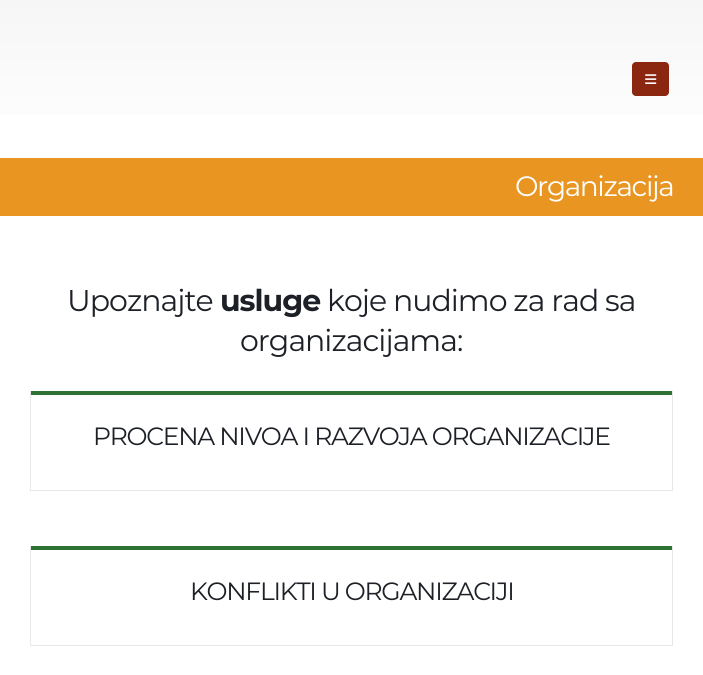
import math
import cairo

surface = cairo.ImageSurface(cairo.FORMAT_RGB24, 703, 675)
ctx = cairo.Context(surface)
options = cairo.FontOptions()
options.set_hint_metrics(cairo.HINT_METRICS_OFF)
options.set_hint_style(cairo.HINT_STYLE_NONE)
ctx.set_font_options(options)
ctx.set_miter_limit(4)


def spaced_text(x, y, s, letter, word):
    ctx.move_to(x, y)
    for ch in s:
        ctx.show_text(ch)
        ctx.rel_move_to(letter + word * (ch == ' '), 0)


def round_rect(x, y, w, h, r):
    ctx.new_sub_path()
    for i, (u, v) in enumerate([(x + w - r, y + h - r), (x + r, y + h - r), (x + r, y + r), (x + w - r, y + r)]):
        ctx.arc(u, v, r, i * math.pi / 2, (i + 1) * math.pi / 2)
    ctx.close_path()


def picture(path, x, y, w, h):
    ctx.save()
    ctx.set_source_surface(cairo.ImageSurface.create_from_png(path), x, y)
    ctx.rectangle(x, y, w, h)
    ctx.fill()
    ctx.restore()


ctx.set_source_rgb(1, 1, 1)
ctx.paint()
gradient = cairo.LinearGradient(352, 0, 352, 158)
gradient.add_color_stop_rgba(0, 0.965, 0.965, 0.965, 1)
gradient.add_color_stop_rgba(1, 1, 1, 1, 1)
ctx.set_source(gradient)
ctx.rectangle(0, 0, 703, 114)
ctx.fill()
ctx.set_source_rgb(0.545, 0.149, 0.063)
round_rect(632, 62, 37, 34, 4)
ctx.fill()
picture("img1.png", 645, 74, 12, 10)
ctx.set_source_rgb(0.91, 0.584, 0.133)
ctx.rectangle(0, 158, 703, 58)
ctx.fill()
ctx.select_font_face("Montserrat")
ctx.set_font_size(28)
ctx.set_source_rgb(1, 1, 1)
spaced_text(515, 196, "Organizacija", -1.4, 0)
ctx.set_font_size(30)
ctx.set_source_rgb(0.114, 0.129, 0.153)
spaced_text(67, 311, "Upoznajte", -1, 0)
ctx.select_font_face("Montserrat", cairo.FONT_SLANT_NORMAL, cairo.FONT_WEIGHT_BOLD)
spaced_text(220, 311, "usluge", -1, 0)
ctx.select_font_face("Montserrat")
spaced_text(327, 311, "koje nudimo za rad sa", -1, 0)
spaced_text(240, 351, "organizacijama:", -1, 0)
ctx.rectangle(30.5, 391.5, 642, 99)
ctx.set_source_rgb(0.906, 0.906, 0.906)
ctx.set_line_width(1)
ctx.stroke()
ctx.set_source_rgb(0.176, 0.447, 0.2)
ctx.rectangle(31, 391, 641, 4)
ctx.fill()
ctx.set_font_size(25)
ctx.set_source_rgb(0.114, 0.129, 0.153)
spaced_text(93, 445, "PROCENA NIVOA I RAZVOJA ORGANIZACIJE", -1.25, 0)
ctx.rectangle(30.5, 546.5, 642, 99)
ctx.set_source_rgb(0.906, 0.906, 0.906)
ctx.stroke()
ctx.set_source_rgb(0.176, 0.447, 0.2)
ctx.rectangle(31, 546, 641, 4)
ctx.fill()
ctx.set_source_rgb(0.114, 0.129, 0.153)
spaced_text(190, 600, "KONFLIKTI U ORGANIZACIJI", -1.25, 0)
surface.write_to_png("page.png")
